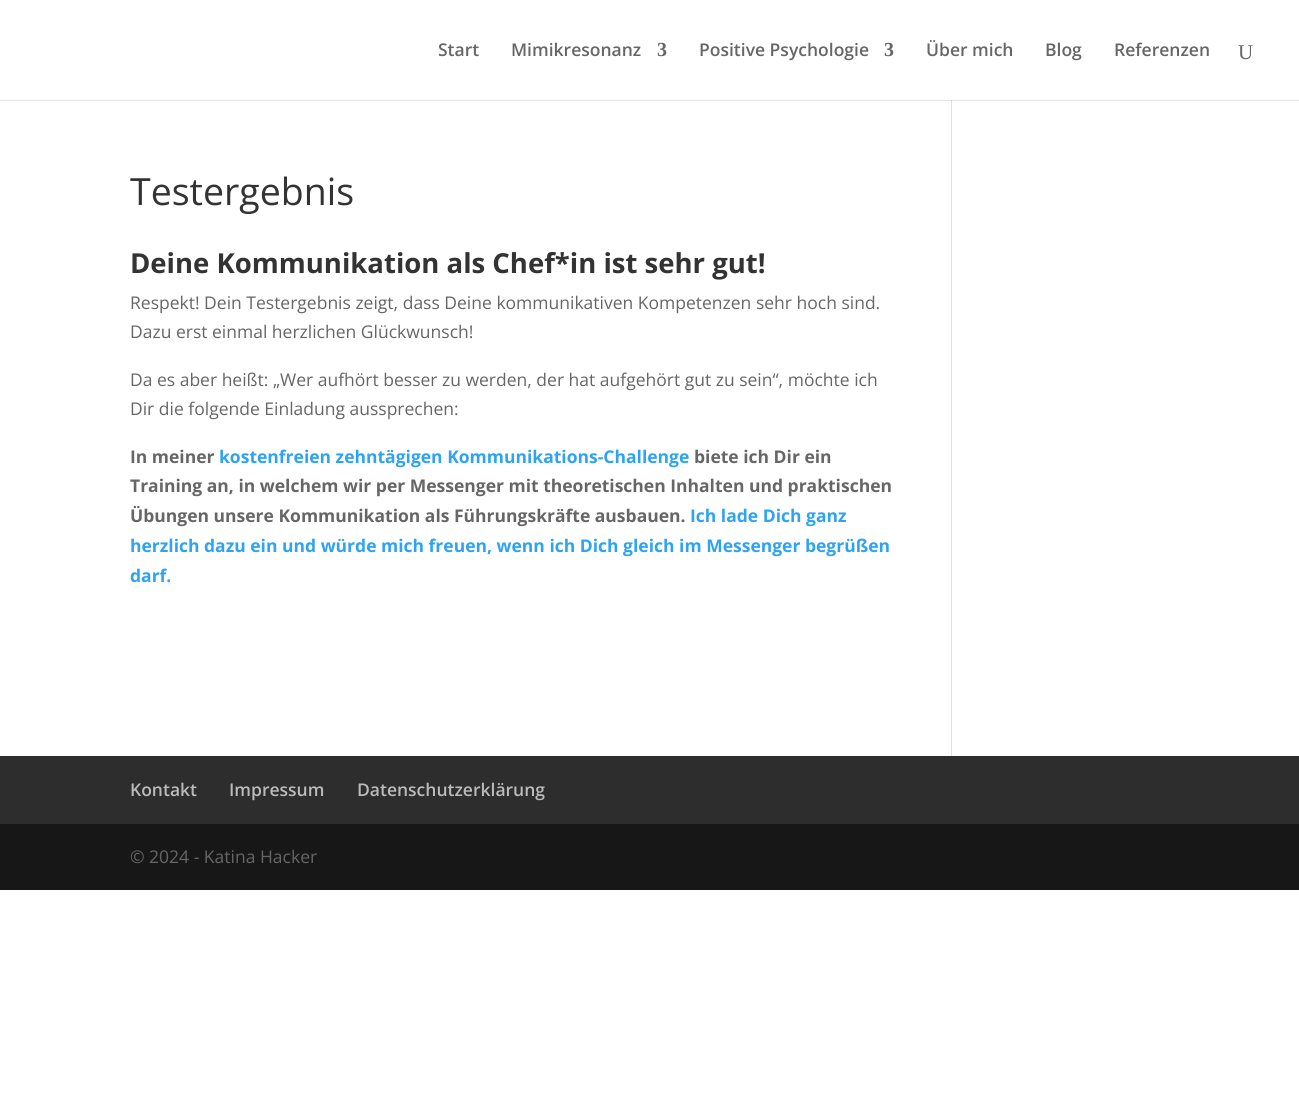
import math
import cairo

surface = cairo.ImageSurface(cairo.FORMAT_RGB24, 1299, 1118)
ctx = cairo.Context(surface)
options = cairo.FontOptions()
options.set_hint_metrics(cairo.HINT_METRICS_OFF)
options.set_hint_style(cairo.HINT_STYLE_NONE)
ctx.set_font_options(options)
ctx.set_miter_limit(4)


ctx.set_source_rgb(1, 1, 1)
ctx.paint()
ctx.set_source_rgb(0.902, 0.902, 0.902)
ctx.rectangle(0, 100, 1299, 1)
ctx.fill()
ctx.select_font_face("Open Sans SemiBold")
ctx.set_font_size(17.5)
ctx.set_source_rgb(0.4, 0.4, 0.4)
ctx.move_to(438, 56)
ctx.show_text("Start")
ctx.move_to(511, 56)
ctx.show_text("Mimikresonanz")
ctx.select_font_face("Liberation Serif", cairo.FONT_SLANT_NORMAL, cairo.FONT_WEIGHT_BOLD)
ctx.set_font_size(20)
ctx.move_to(657, 56)
ctx.show_text("3")
ctx.select_font_face("Open Sans SemiBold")
ctx.set_font_size(17.5)
ctx.move_to(699, 56)
ctx.show_text("Positive Psychologie")
ctx.select_font_face("Liberation Serif", cairo.FONT_SLANT_NORMAL, cairo.FONT_WEIGHT_BOLD)
ctx.set_font_size(20)
ctx.move_to(884, 56)
ctx.show_text("3")
ctx.select_font_face("Open Sans SemiBold")
ctx.set_font_size(17.5)
ctx.move_to(926, 56)
ctx.show_text("Über mich")
ctx.move_to(1045, 56)
ctx.show_text("Blog")
ctx.move_to(1114, 56)
ctx.show_text("Referenzen")
ctx.select_font_face("Liberation Serif")
ctx.set_font_size(21)
ctx.move_to(1238, 59)
ctx.show_text("U")
ctx.select_font_face("Open Sans")
ctx.set_font_size(37.5)
ctx.set_source_rgb(0.2, 0.2, 0.2)
ctx.move_to(130, 205)
ctx.show_text("Testergebnis")
ctx.select_font_face("Open Sans", cairo.FONT_SLANT_NORMAL, cairo.FONT_WEIGHT_BOLD)
ctx.set_font_size(27.5)
ctx.move_to(130, 273)
ctx.show_text("Deine Kommunikation als Chef*in ist sehr gut!")
ctx.select_font_face("Open Sans")
ctx.set_font_size(17.5)
ctx.set_source_rgb(0.4, 0.4, 0.4)
ctx.move_to(130, 309)
ctx.show_text("Respekt! Dein Testergebnis zeigt, dass Deine kommunikativen Kompetenzen sehr hoch sind.")
ctx.move_to(130, 338)
ctx.show_text("Dazu erst einmal herzlichen Glückwunsch!")
ctx.move_to(130, 386)
ctx.show_text("Da es aber heißt: „Wer aufhört besser zu werden, der hat aufgehört gut zu sein“, möchte ich")
ctx.move_to(130, 415)
ctx.show_text("Dir die folgende Einladung aussprechen:")
ctx.select_font_face("Open Sans", cairo.FONT_SLANT_NORMAL, cairo.FONT_WEIGHT_BOLD)
ctx.move_to(130, 463)
ctx.show_text("In meiner")
ctx.set_source_rgb(0.18, 0.639, 0.949)
ctx.move_to(219, 463)
ctx.show_text("kostenfreien zehntägigen Kommunikations-Challenge")
ctx.set_source_rgb(0.4, 0.4, 0.4)
ctx.move_to(694, 463)
ctx.show_text("biete ich Dir ein")
ctx.move_to(130, 492)
ctx.show_text("Training an, in welchem wir per Messenger mit theoretischen Inhalten und praktischen")
ctx.move_to(130, 522)
ctx.show_text("Übungen unsere Kommunikation als Führungskräfte ausbauen.")
ctx.set_source_rgb(0.18, 0.639, 0.949)
ctx.move_to(690, 522)
ctx.show_text("Ich lade Dich ganz")
ctx.move_to(130, 552)
ctx.show_text("herzlich dazu ein und würde mich freuen, wenn ich Dich gleich im Messenger begrüßen")
ctx.move_to(130, 582)
ctx.show_text("darf.")
ctx.set_source_rgb(0.886, 0.886, 0.886)
ctx.rectangle(951, 100, 1, 656)
ctx.fill()
ctx.set_source_rgb(0.796, 0.796, 0.796)
ctx.rectangle(951, 100, 1, 1)
ctx.fill()
ctx.set_source_rgb(0.176, 0.176, 0.176)
ctx.rectangle(0, 756, 1299, 68)
ctx.fill()
ctx.select_font_face("Open Sans SemiBold")
ctx.set_source_rgb(0.733, 0.733, 0.733)
ctx.move_to(130, 796)
ctx.show_text("Kontakt")
ctx.move_to(229, 796)
ctx.show_text("Impressum")
ctx.move_to(357, 796)
ctx.show_text("Datenschutzerklärung")
ctx.set_source_rgb(0.09, 0.09, 0.09)
ctx.rectangle(0, 824, 1299, 66)
ctx.fill()
ctx.select_font_face("Open Sans")
ctx.set_source_rgb(0.4, 0.4, 0.4)
ctx.move_to(130, 863)
ctx.show_text("© 2024 - Katina Hacker")
surface.write_to_png("page.png")
